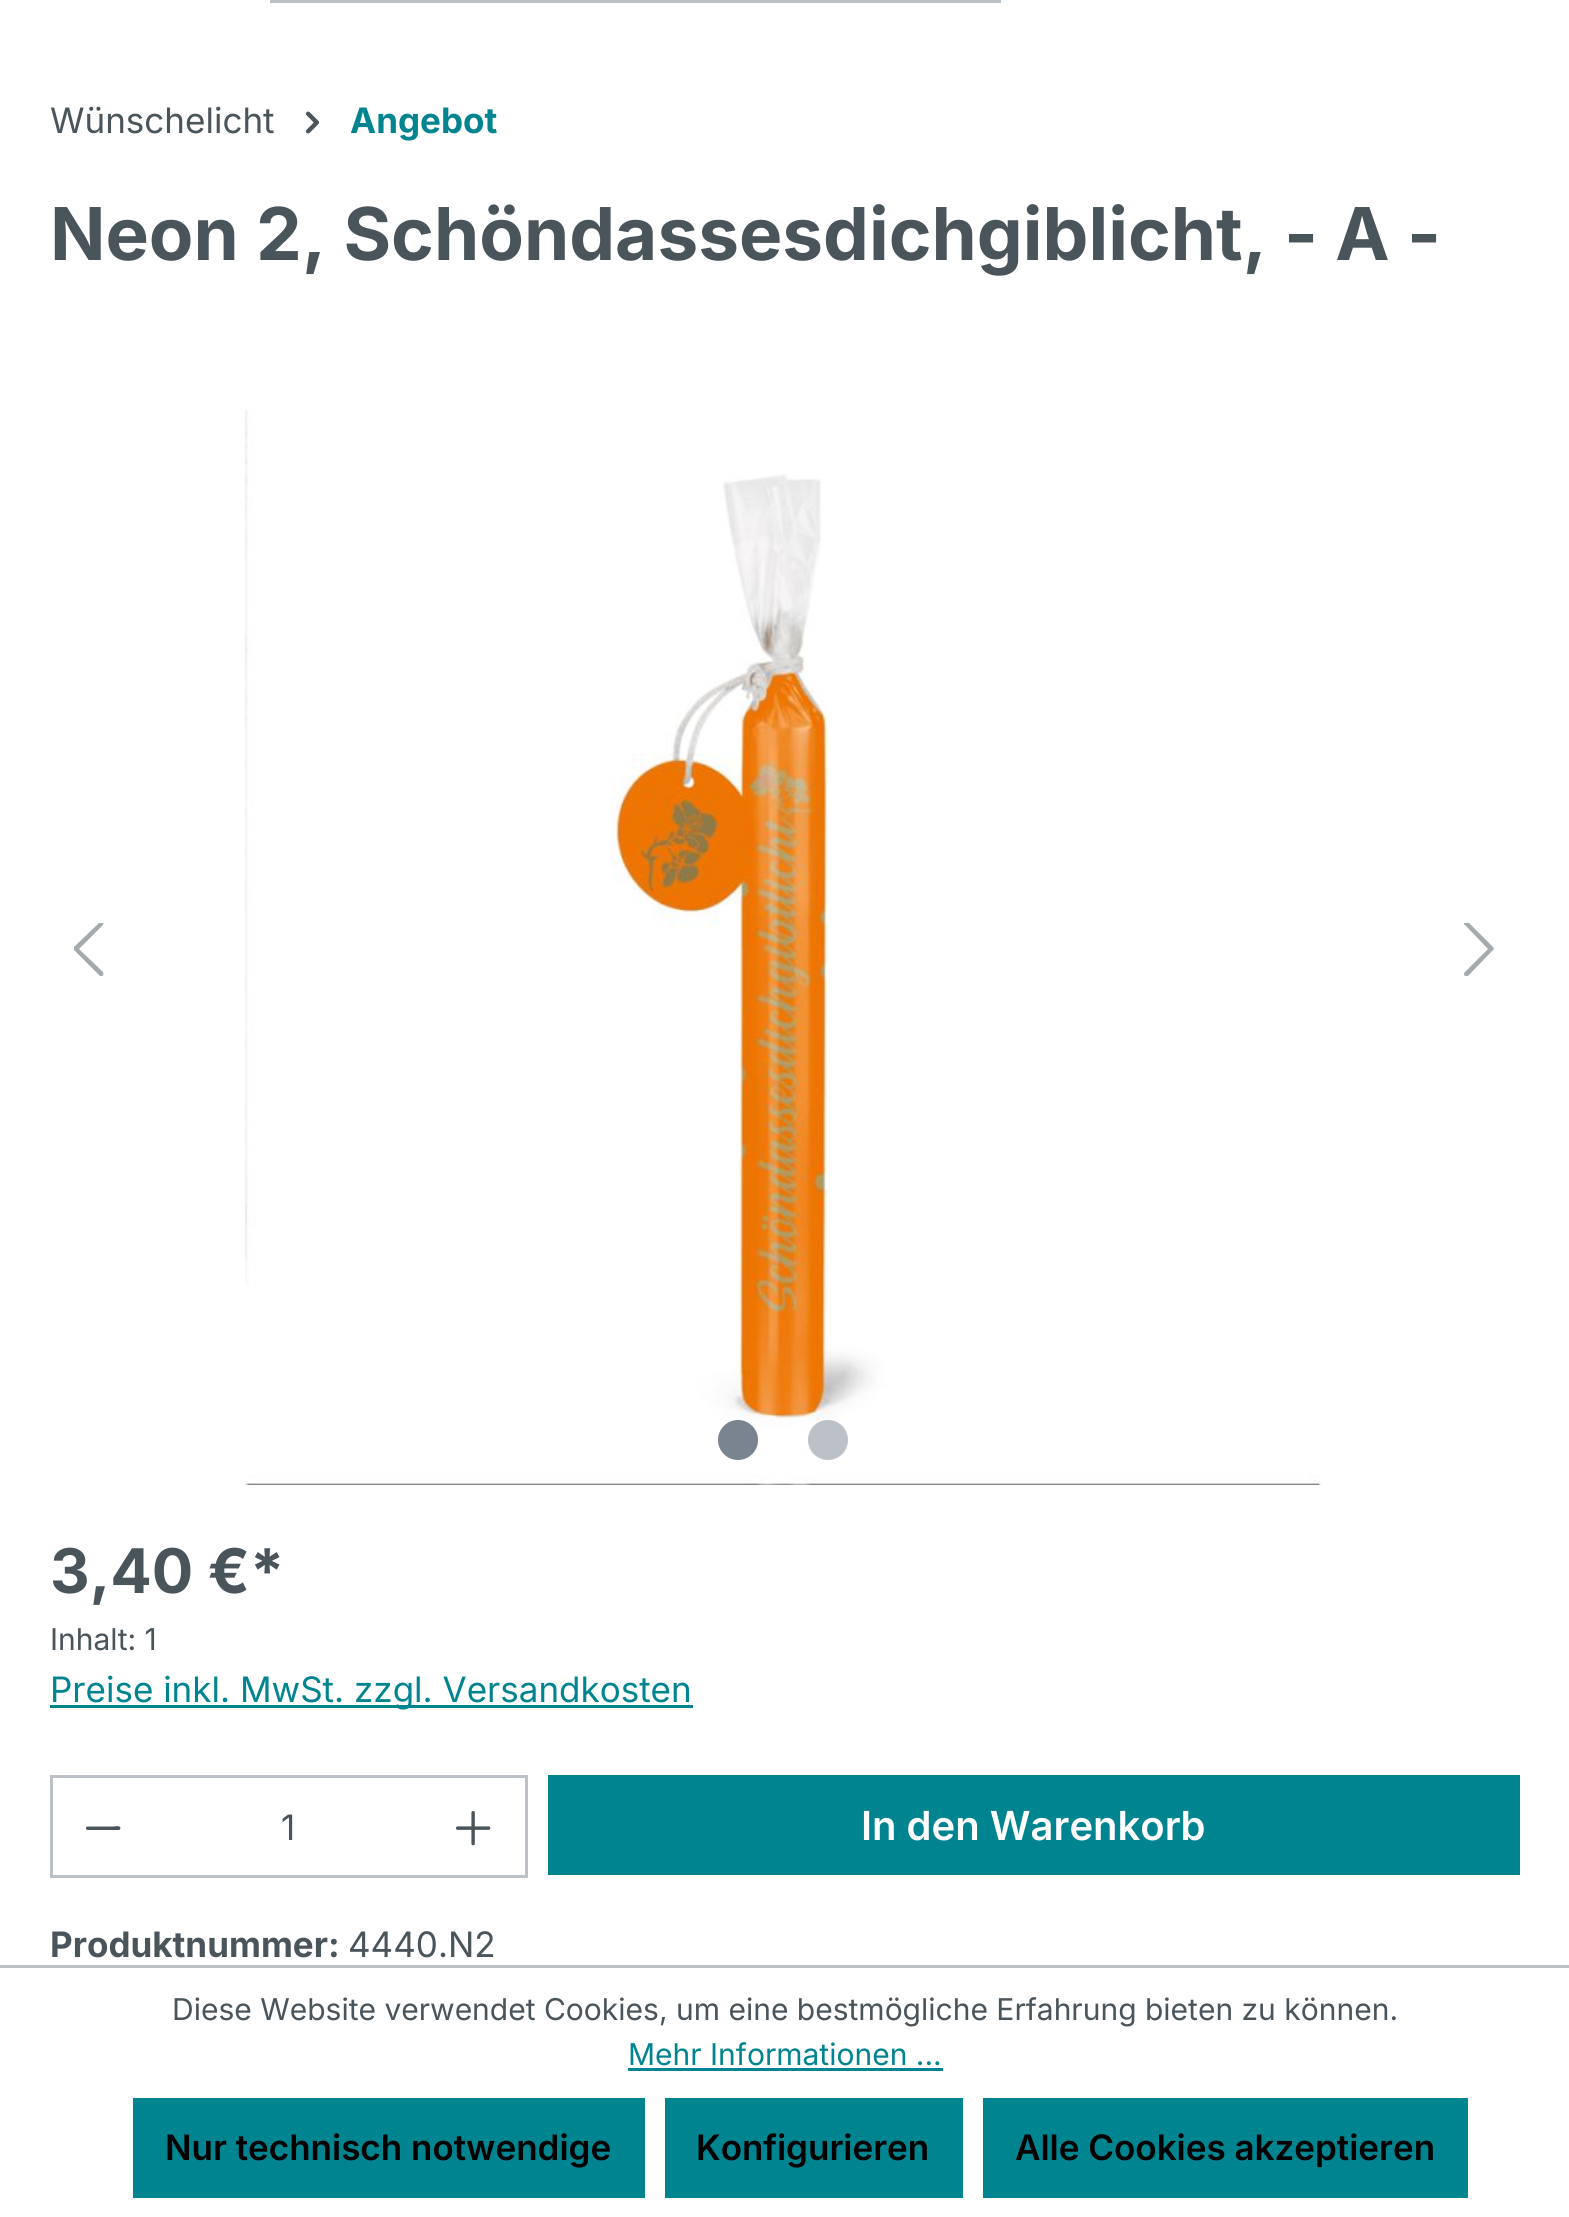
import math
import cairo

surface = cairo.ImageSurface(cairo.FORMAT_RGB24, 1569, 2217)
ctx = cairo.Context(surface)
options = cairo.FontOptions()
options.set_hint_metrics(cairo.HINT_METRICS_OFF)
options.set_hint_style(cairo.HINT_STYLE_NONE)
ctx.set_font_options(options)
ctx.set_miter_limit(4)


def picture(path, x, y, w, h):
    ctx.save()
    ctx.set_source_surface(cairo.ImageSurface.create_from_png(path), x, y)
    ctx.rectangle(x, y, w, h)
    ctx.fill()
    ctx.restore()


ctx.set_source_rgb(1, 1, 1)
ctx.paint()
ctx.set_source_rgb(0.737, 0.757, 0.78)
ctx.rectangle(270, 0, 615, 3)
ctx.fill()
ctx.rectangle(883, 0, 118, 3)
ctx.fill()
ctx.select_font_face("Inter")
ctx.set_font_size(35)
ctx.set_source_rgb(0.29, 0.329, 0.357)
ctx.move_to(50, 133)
ctx.show_text("Wünschelicht")
picture("img1.png", 305, 111, 14, 23)
ctx.select_font_face("Inter", cairo.FONT_SLANT_NORMAL, cairo.FONT_WEIGHT_BOLD)
ctx.set_source_rgb(0, 0.518, 0.565)
ctx.move_to(350, 133)
ctx.show_text("Angebot")
ctx.set_font_size(72.8)
ctx.set_source_rgb(0.29, 0.329, 0.357)
ctx.move_to(50, 260)
ctx.show_text("Neon 2, Schöndassesdichgiblicht,")
ctx.move_to(1284, 260)
ctx.show_text("- A -")
picture("img2.png", 245, 410, 1076, 1075)
ctx.save()
ctx.rectangle(60, 923, 55, 55)
ctx.clip()
ctx.set_source_rgb(0.647, 0.667, 0.678)
ctx.set_fill_rule(cairo.FILL_RULE_EVEN_ODD)
ctx.new_path()
ctx.move_to(79, 949)
ctx.line_to(103, 972)
ctx.curve_to(104, 974, 103, 976, 102, 976)
ctx.line_to(100, 976)
ctx.line_to(74, 950)
ctx.line_to(74, 949)
ctx.line_to(74, 947)
ctx.line_to(100, 922)
ctx.line_to(102, 921)
ctx.curve_to(103, 922, 104, 924, 103, 925)
ctx.close_path()
ctx.fill()
ctx.restore()
ctx.save()
ctx.rectangle(1453, 923, 55, 55)
ctx.clip()
ctx.set_source_rgb(0.647, 0.667, 0.678)
ctx.set_fill_rule(cairo.FILL_RULE_EVEN_ODD)
ctx.new_path()
ctx.move_to(1488, 949)
ctx.line_to(1465, 972)
ctx.curve_to(1463, 974, 1464, 976, 1466, 976)
ctx.line_to(1468, 976)
ctx.line_to(1493, 950)
ctx.line_to(1494, 949)
ctx.line_to(1493, 947)
ctx.line_to(1468, 922)
ctx.line_to(1466, 921)
ctx.curve_to(1464, 922, 1463, 924, 1465, 925)
ctx.close_path()
ctx.fill()
ctx.restore()
ctx.set_source_rgb(0.475, 0.518, 0.565)
ctx.arc(738, 1440, 20, 0, 2 * math.pi)
ctx.fill()
ctx.set_source_rgb(0.737, 0.757, 0.78)
ctx.arc(828, 1440, 20, 0, 2 * math.pi)
ctx.fill()
ctx.set_font_size(61.5)
ctx.set_source_rgb(0.29, 0.329, 0.357)
ctx.move_to(50, 1593)
ctx.show_text("3,40 €*")
ctx.select_font_face("Inter")
ctx.set_font_size(30)
ctx.move_to(50, 1650)
ctx.show_text("Inhalt: 1")
ctx.set_source_rgb(0, 0.518, 0.565)
ctx.rectangle(50, 1705, 643, 3)
ctx.fill()
ctx.set_font_size(35)
ctx.move_to(50, 1702)
ctx.show_text("Preise inkl. MwSt. zzgl. Versandkosten")
ctx.set_source_rgb(0.737, 0.757, 0.78)
ctx.rectangle(50, 1775, 478, 3)
ctx.fill()
ctx.rectangle(50, 1875, 375, 3)
ctx.fill()
ctx.rectangle(50, 1775, 3, 103)
ctx.fill()
ctx.set_source_rgb(0.29, 0.329, 0.357)
ctx.set_fill_rule(cairo.FILL_RULE_EVEN_ODD)
ctx.new_path()
ctx.move_to(87.5, 1830)
ctx.line_to(119, 1830)
ctx.line_to(120, 1829.5)
ctx.line_to(120.5, 1828)
ctx.curve_to(120, 1825, 114, 1826.5, 113.5, 1826.5)
ctx.line_to(87, 1826.5)
ctx.curve_to(86, 1827, 85.5, 1828.5, 86.5, 1829.5)
ctx.close_path()
ctx.fill()
ctx.move_to(281, 1840)
ctx.show_text("1")
ctx.set_source_rgb(0.737, 0.757, 0.78)
ctx.rectangle(525, 1775, 3, 103)
ctx.fill()
ctx.rectangle(423, 1875, 105, 3)
ctx.fill()
picture("img3.png", 456, 1811, 35, 35)
ctx.set_source_rgb(0, 0.518, 0.565)
ctx.rectangle(548, 1775, 972, 100)
ctx.fill()
ctx.select_font_face("Inter SemiBold")
ctx.set_font_size(40)
ctx.set_source_rgb(1, 1, 1)
ctx.move_to(861, 1840)
ctx.show_text("In den Warenkorb")
ctx.select_font_face("Inter", cairo.FONT_SLANT_NORMAL, cairo.FONT_WEIGHT_BOLD)
ctx.set_font_size(35)
ctx.set_source_rgb(0.29, 0.329, 0.357)
ctx.move_to(50, 1957)
ctx.show_text("Produktnummer:")
ctx.select_font_face("Inter")
ctx.move_to(348, 1957)
ctx.show_text("4440.N2")
ctx.set_source_rgb(0.737, 0.757, 0.78)
ctx.rectangle(0, 1965, 1569, 3)
ctx.fill()
ctx.set_font_size(30)
ctx.set_source_rgb(0.29, 0.329, 0.357)
ctx.move_to(172, 2020)
ctx.show_text("Diese Website verwendet Cookies, um eine bestmögliche Erfahrung bieten zu können.")
ctx.set_source_rgb(0, 0.518, 0.565)
ctx.move_to(628, 2065)
ctx.show_text("Mehr Informationen ...")
ctx.rectangle(628, 2068, 315, 3)
ctx.fill()
ctx.rectangle(133, 2098, 512, 100)
ctx.fill()
ctx.select_font_face("Inter SemiBold")
ctx.set_font_size(35)
ctx.set_source_rgb(0, 0, 0)
ctx.move_to(165, 2160)
ctx.show_text("Nur technisch notwendige")
ctx.set_source_rgb(0, 0.518, 0.565)
ctx.rectangle(665, 2098, 298, 100)
ctx.fill()
ctx.set_source_rgb(0, 0, 0)
ctx.move_to(696, 2160)
ctx.show_text("Konfigurieren")
ctx.set_source_rgb(0, 0.518, 0.565)
ctx.rectangle(983, 2098, 485, 100)
ctx.fill()
ctx.set_source_rgb(0, 0, 0)
ctx.move_to(1015, 2160)
ctx.show_text("Alle Cookies akzeptieren")
surface.write_to_png("page.png")
